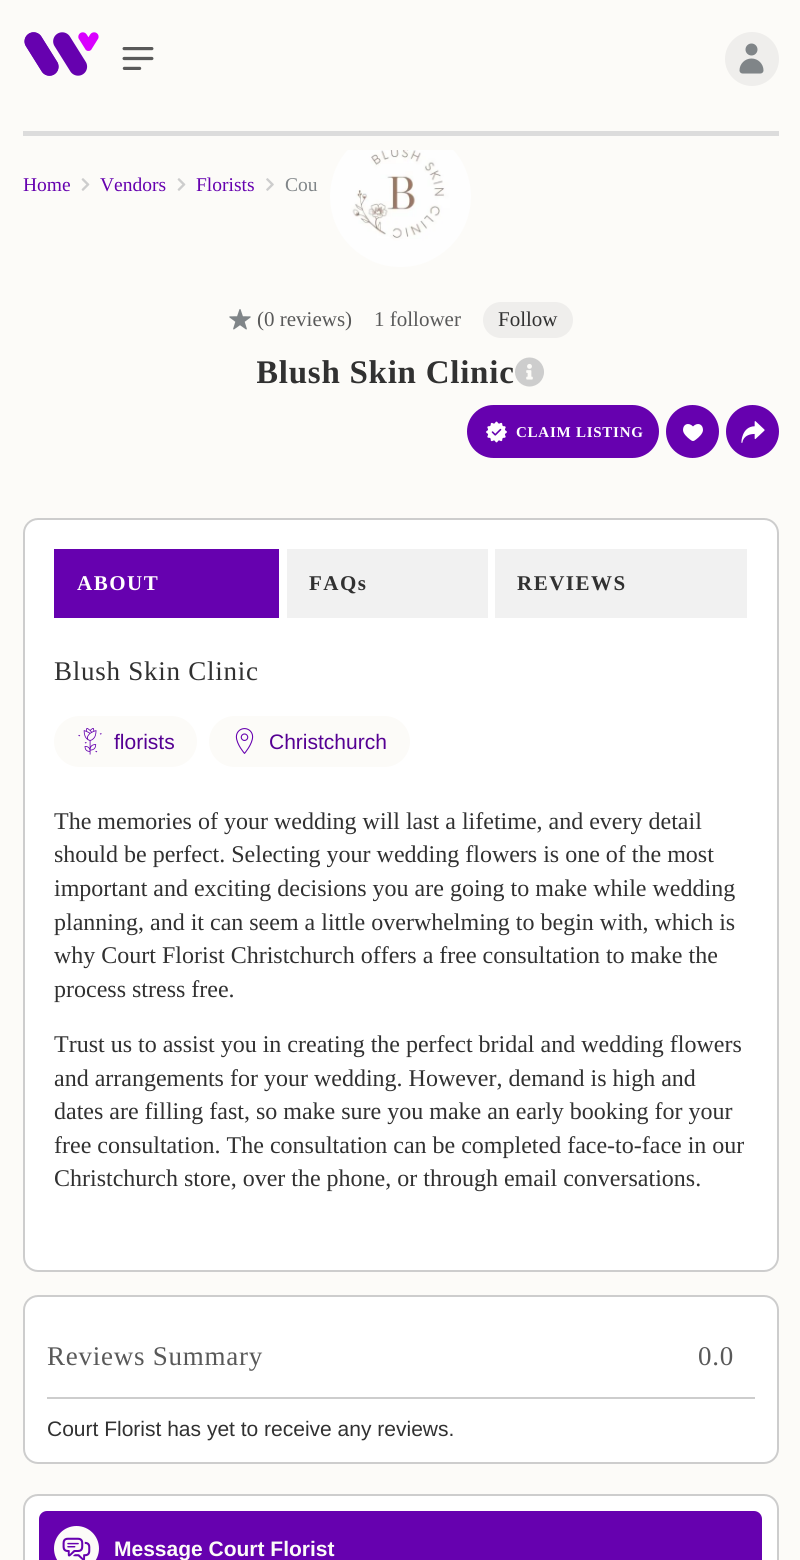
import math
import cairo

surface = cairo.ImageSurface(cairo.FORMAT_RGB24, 800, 1560)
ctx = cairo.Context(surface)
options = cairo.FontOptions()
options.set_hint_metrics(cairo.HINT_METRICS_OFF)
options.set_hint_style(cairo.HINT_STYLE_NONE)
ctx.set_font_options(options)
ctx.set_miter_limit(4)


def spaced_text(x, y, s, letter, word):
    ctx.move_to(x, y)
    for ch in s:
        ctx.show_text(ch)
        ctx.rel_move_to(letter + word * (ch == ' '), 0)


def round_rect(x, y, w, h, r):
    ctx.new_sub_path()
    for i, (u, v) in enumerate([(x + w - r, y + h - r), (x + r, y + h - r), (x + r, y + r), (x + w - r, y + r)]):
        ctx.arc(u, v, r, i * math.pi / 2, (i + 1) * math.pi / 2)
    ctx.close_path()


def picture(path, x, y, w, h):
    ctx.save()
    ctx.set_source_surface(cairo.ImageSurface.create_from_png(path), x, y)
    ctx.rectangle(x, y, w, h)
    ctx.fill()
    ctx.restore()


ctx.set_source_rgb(0.988, 0.984, 0.969)
ctx.paint()
picture("img1.png", 24, 32, 75, 44)
picture("img2.png", 122, 47, 32, 23)
ctx.set_source_rgb(0.937, 0.933, 0.922)
ctx.arc(752, 59, 27, 0, 2 * math.pi)
ctx.fill()
picture("img3.png", 739, 43, 25, 31)
ctx.set_source_rgb(0.863, 0.863, 0.863)
ctx.rectangle(23, 131, 756, 5)
ctx.fill()
ctx.select_font_face("Liberation Serif")
ctx.set_font_size(19.5)
ctx.set_source_rgb(0.4, 0.004, 0.686)
ctx.move_to(23, 191)
ctx.show_text("Home")
picture("img4.png", 81, 178, 9, 13)
ctx.move_to(100, 191)
ctx.show_text("Vendors")
picture("img4.png", 177, 178, 9, 13)
ctx.move_to(196, 191)
ctx.show_text("Florists")
picture("img5.png", 266, 178, 8, 13)
ctx.set_source_rgb(0.502, 0.522, 0.533)
ctx.move_to(285, 191)
ctx.show_text("Cou")
picture("img6.png", 330, 150, 141, 117)
picture("img7.png", 229, 309, 22, 21)
ctx.set_font_size(21)
ctx.set_source_rgb(0.349, 0.349, 0.349)
ctx.move_to(257, 326)
ctx.show_text("(0 reviews)")
ctx.move_to(374, 326)
ctx.show_text("1 follower")
ctx.set_source_rgb(0.937, 0.933, 0.922)
round_rect(483, 302, 90, 36, 18)
ctx.fill()
ctx.set_source_rgb(0.192, 0.192, 0.192)
ctx.move_to(498, 326)
ctx.show_text("Follow")
ctx.save()
ctx.rectangle(257, 345, 258, 53)
ctx.clip()
ctx.select_font_face("Liberation Serif", cairo.FONT_SLANT_NORMAL, cairo.FONT_WEIGHT_BOLD)
ctx.set_font_size(33)
spaced_text(256, 383, "Blush Skin Clinic", 0.75, 0)
ctx.restore()
picture("img8.png", 515, 357, 29, 30)
ctx.set_source_rgb(0.4, 0.004, 0.686)
round_rect(467, 405, 192, 53, 26.5)
ctx.fill()
picture("img9.png", 486, 421, 21, 22)
ctx.select_font_face("Liberation Serif", cairo.FONT_SLANT_NORMAL, cairo.FONT_WEIGHT_BOLD)
ctx.set_font_size(15)
ctx.set_source_rgb(1, 1, 1)
spaced_text(516, 437, "CLAIM LISTING", 0.75, 0)
ctx.set_source_rgb(0.4, 0.004, 0.686)
ctx.new_path()
ctx.arc(692.5, 431.5, 26.5, 0, 2 * math.pi)
ctx.fill()
picture("img10.png", 683, 424, 20, 17)
ctx.arc(752.5, 431.5, 26.5, 0, 2 * math.pi)
ctx.fill()
picture("img11.png", 741, 421, 24, 22)
ctx.set_source_rgb(1, 1, 1)
round_rect(24, 519, 754, 752, 14)
ctx.fill_preserve()
ctx.set_source_rgb(0.804, 0.804, 0.804)
ctx.stroke()
ctx.set_source_rgb(0.4, 0.004, 0.686)
ctx.rectangle(54, 549, 225, 69)
ctx.fill()
ctx.set_font_size(21)
ctx.set_source_rgb(1, 1, 1)
spaced_text(77, 590, "ABOUT", 1.5, 0)
ctx.set_source_rgb(0.945, 0.945, 0.945)
ctx.rectangle(287, 549, 201, 69)
ctx.fill()
ctx.set_source_rgb(0.192, 0.192, 0.192)
spaced_text(309, 590, "FAQs", 1.5, 0)
ctx.set_source_rgb(0.945, 0.945, 0.945)
ctx.rectangle(495, 549, 252, 69)
ctx.fill()
ctx.set_source_rgb(0.192, 0.192, 0.192)
spaced_text(517, 590, "REVIEWS", 1.5, 0)
ctx.select_font_face("Liberation Serif")
ctx.set_font_size(27)
spaced_text(54, 680, "Blush Skin Clinic", 0.75, 0)
ctx.set_source_rgb(0.988, 0.984, 0.969)
round_rect(54, 716, 143, 51, 25.5)
ctx.fill()
picture("img12.png", 78, 728, 24, 27)
ctx.select_font_face("Liberation Sans")
ctx.set_font_size(21)
ctx.set_source_rgb(0.333, 0, 0.576)
ctx.move_to(114, 749)
ctx.show_text("florists")
ctx.set_source_rgb(0.988, 0.984, 0.969)
round_rect(209, 716, 201, 51, 25.5)
ctx.fill()
picture("img13.png", 235, 728, 19, 26)
ctx.set_source_rgb(0.333, 0, 0.576)
ctx.move_to(269, 749)
ctx.show_text("Christchurch")
ctx.select_font_face("Liberation Serif")
ctx.set_font_size(24)
ctx.set_source_rgb(0.192, 0.192, 0.192)
ctx.move_to(54, 829)
ctx.show_text("The memories of your wedding will last a lifetime, and every detail")
ctx.move_to(54, 862)
ctx.show_text("should be perfect. Selecting your wedding flowers is one of the most")
ctx.move_to(54, 896)
ctx.show_text("important and exciting decisions you are going to make while wedding")
ctx.move_to(54, 930)
ctx.show_text("planning, and it can seem a little overwhelming to begin with, which is")
ctx.move_to(54, 963)
ctx.show_text("why Court Florist Christchurch offers a free consultation to make the")
ctx.move_to(54, 997)
ctx.show_text("process stress free.")
ctx.move_to(54, 1052)
ctx.show_text("Trust us to assist you in creating the perfect bridal and wedding flowers")
ctx.move_to(54, 1086)
ctx.show_text("and arrangements for your wedding. However, demand is high and")
ctx.move_to(54, 1119)
ctx.show_text("dates are filling fast, so make sure you make an early booking for your")
ctx.move_to(54, 1153)
ctx.show_text("free consultation. The consultation can be completed face-to-face in our")
ctx.move_to(54, 1186)
ctx.show_text("Christchurch store, over the phone, or through email conversations.")
ctx.set_source_rgb(1, 1, 1)
round_rect(24, 1296, 754, 167, 14)
ctx.fill_preserve()
ctx.set_source_rgb(0.804, 0.804, 0.804)
ctx.stroke()
ctx.set_font_size(27)
ctx.set_source_rgb(0.349, 0.349, 0.349)
spaced_text(47, 1365, "Reviews Summary", 0.75, 0)
spaced_text(698, 1365, "0.0", 0.75, 0)
ctx.set_source_rgb(0.804, 0.804, 0.804)
ctx.rectangle(47, 1397, 708, 2)
ctx.fill()
ctx.select_font_face("Liberation Sans")
ctx.set_font_size(21)
ctx.set_source_rgb(0.192, 0.192, 0.192)
ctx.move_to(47, 1436)
ctx.show_text("Court Florist has yet to receive any reviews.")
ctx.set_source_rgb(1, 1, 1)
round_rect(24, 1495, 754, 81, 14)
ctx.fill_preserve()
ctx.set_source_rgb(0.804, 0.804, 0.804)
ctx.stroke()
ctx.set_source_rgb(0.4, 0.004, 0.686)
round_rect(39, 1511, 723, 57, 8)
ctx.fill()
ctx.set_source_rgb(0.988, 0.984, 0.969)
ctx.arc(76.5, 1548.5, 22.5, 0, 2 * math.pi)
ctx.fill()
picture("img14.png", 62, 1537, 29, 23)
ctx.select_font_face("Liberation Sans", cairo.FONT_SLANT_NORMAL, cairo.FONT_WEIGHT_BOLD)
ctx.move_to(114, 1556)
ctx.show_text("Message Court Florist")
surface.write_to_png("page.png")
